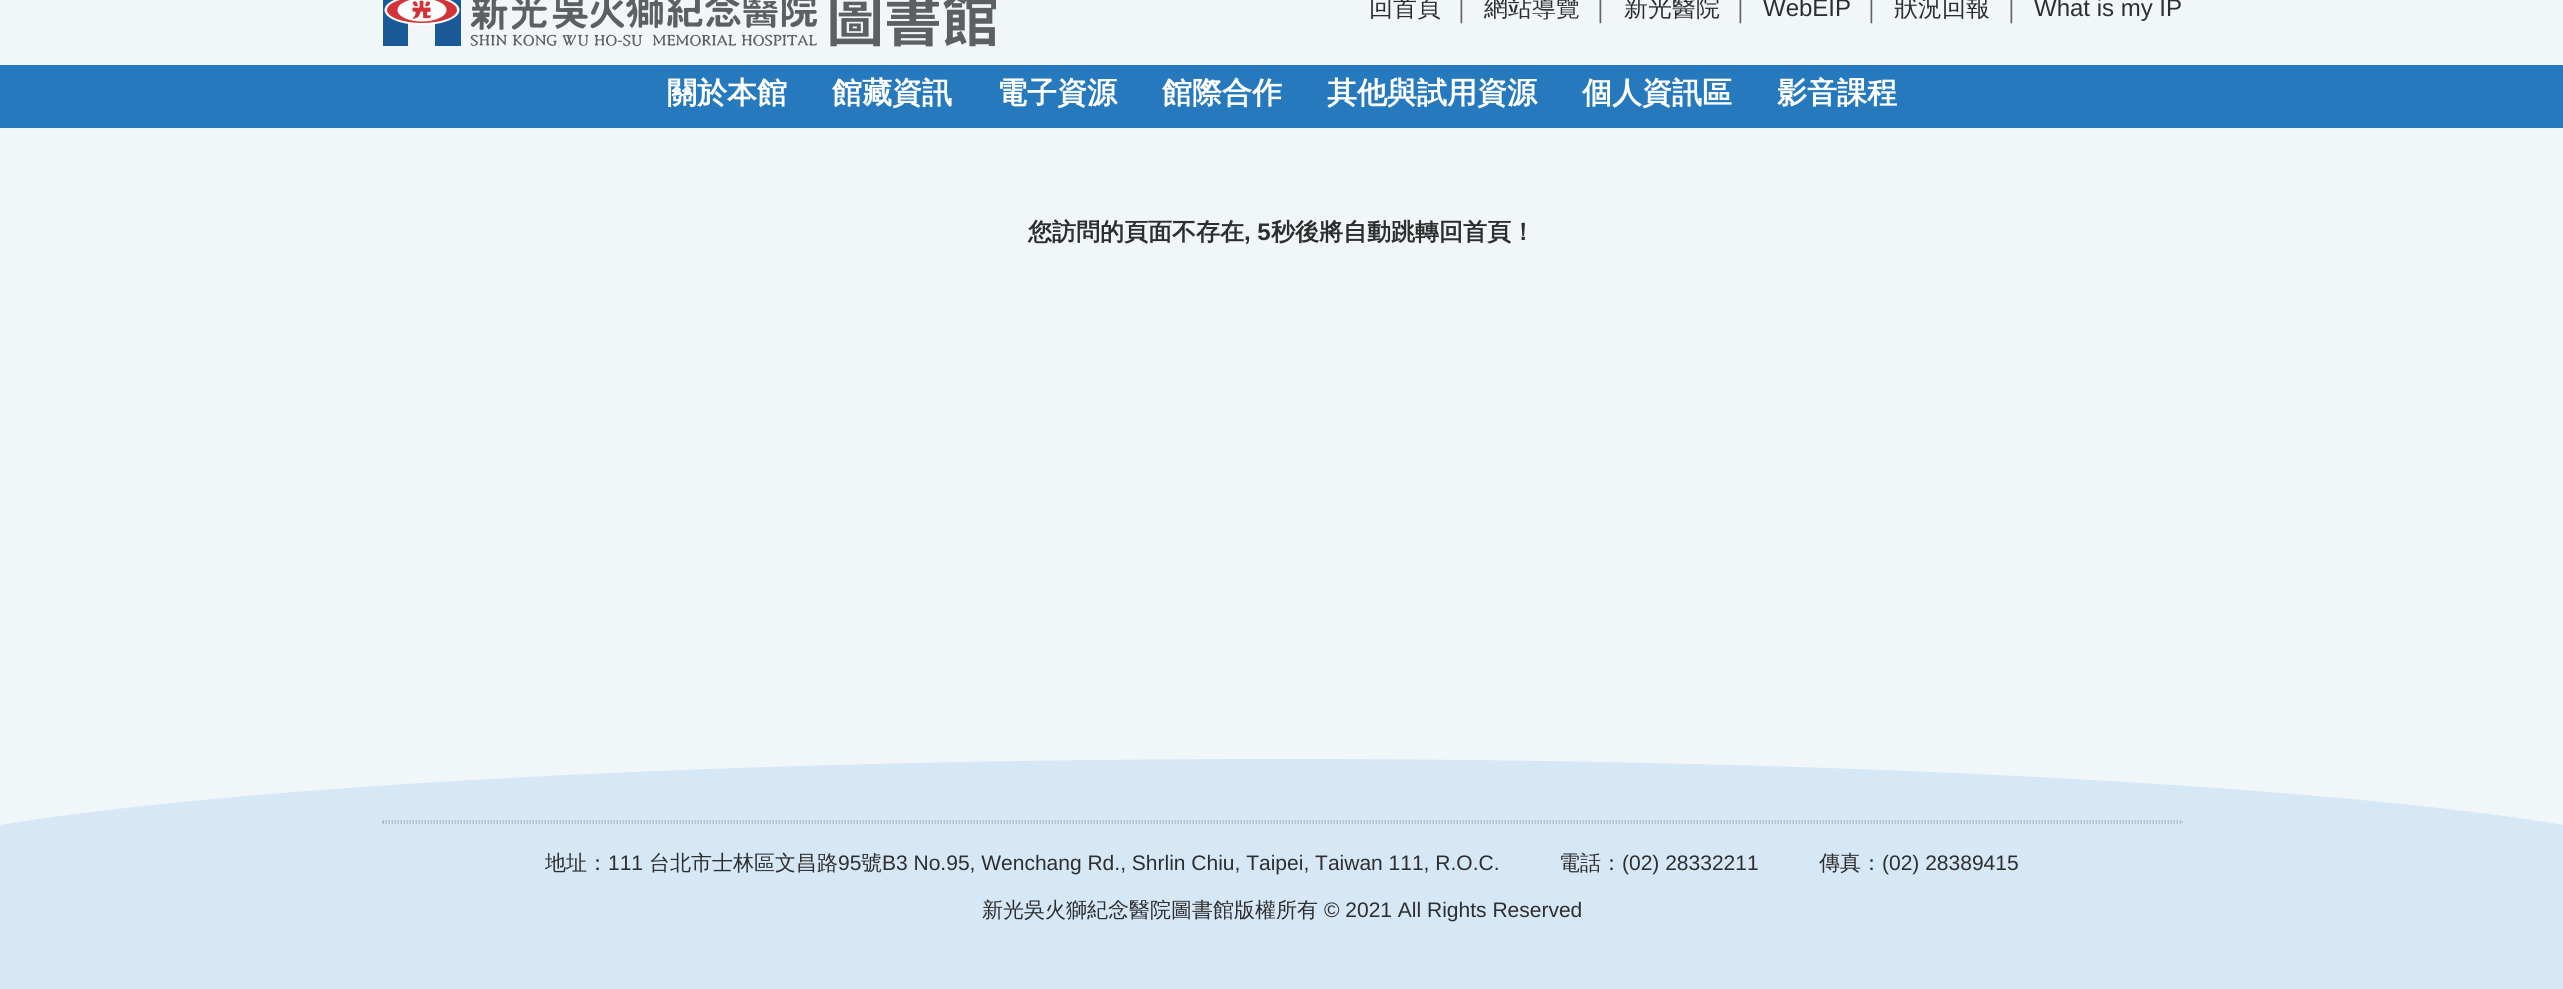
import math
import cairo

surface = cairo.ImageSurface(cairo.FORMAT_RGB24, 2563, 989)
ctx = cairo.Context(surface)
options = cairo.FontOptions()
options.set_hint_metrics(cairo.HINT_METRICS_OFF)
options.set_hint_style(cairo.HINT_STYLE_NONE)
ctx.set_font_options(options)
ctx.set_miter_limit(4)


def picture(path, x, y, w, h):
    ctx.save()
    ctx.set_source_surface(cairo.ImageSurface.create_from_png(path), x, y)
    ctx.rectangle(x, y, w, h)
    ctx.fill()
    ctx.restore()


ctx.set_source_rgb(0.945, 0.961, 0.973)
ctx.paint()
picture("img1.png", 383, 0, 613, 47)
ctx.select_font_face("WenQuanYi Zen Hei Medium")
ctx.set_font_size(24)
ctx.set_source_rgb(0.18, 0.18, 0.18)
ctx.move_to(1369, 16)
ctx.show_text("回首頁")
ctx.select_font_face("Liberation Sans")
ctx.set_source_rgb(0.4, 0.4, 0.4)
ctx.move_to(1455, 16)
ctx.show_text("│")
ctx.select_font_face("WenQuanYi Zen Hei Medium")
ctx.set_source_rgb(0.18, 0.18, 0.18)
ctx.move_to(1484, 16)
ctx.show_text("網站導覽")
ctx.select_font_face("Liberation Sans")
ctx.set_source_rgb(0.4, 0.4, 0.4)
ctx.move_to(1594, 16)
ctx.show_text("│")
ctx.select_font_face("WenQuanYi Zen Hei Medium")
ctx.set_source_rgb(0.18, 0.18, 0.18)
ctx.move_to(1624, 16)
ctx.show_text("新光醫院")
ctx.select_font_face("Liberation Sans")
ctx.set_source_rgb(0.4, 0.4, 0.4)
ctx.move_to(1734, 16)
ctx.show_text("│")
ctx.set_source_rgb(0.18, 0.18, 0.18)
ctx.move_to(1763, 16)
ctx.show_text("WebEIP")
ctx.set_source_rgb(0.4, 0.4, 0.4)
ctx.move_to(1865, 16)
ctx.show_text("│")
ctx.select_font_face("WenQuanYi Zen Hei Medium")
ctx.set_source_rgb(0.18, 0.18, 0.18)
ctx.move_to(1894, 16)
ctx.show_text("狀況回報")
ctx.select_font_face("Liberation Sans")
ctx.set_source_rgb(0.4, 0.4, 0.4)
ctx.move_to(2005, 16)
ctx.show_text("│")
ctx.set_source_rgb(0.18, 0.18, 0.18)
ctx.move_to(2034, 16)
ctx.show_text("What is my IP")
ctx.set_source_rgb(0.153, 0.475, 0.741)
ctx.rectangle(0, 65, 2563, 63)
ctx.fill()
ctx.select_font_face("WenQuanYi Zen Hei", cairo.FONT_SLANT_NORMAL, cairo.FONT_WEIGHT_BOLD)
ctx.set_font_size(30)
ctx.set_source_rgb(1, 1, 1)
ctx.move_to(667, 103)
ctx.show_text("關於本館")
ctx.move_to(832, 103)
ctx.show_text("館藏資訊")
ctx.move_to(997, 103)
ctx.show_text("電子資源")
ctx.move_to(1162, 103)
ctx.show_text("館際合作")
ctx.move_to(1327, 103)
ctx.show_text("其他與試用資源")
ctx.move_to(1582, 103)
ctx.show_text("個人資訊區")
ctx.move_to(1777, 103)
ctx.show_text("影音課程")
ctx.set_font_size(24)
ctx.set_source_rgb(0.18, 0.18, 0.18)
ctx.move_to(1028, 240)
ctx.show_text("您訪問的頁面不存在")
ctx.select_font_face("Liberation Sans", cairo.FONT_SLANT_NORMAL, cairo.FONT_WEIGHT_BOLD)
ctx.move_to(1244, 240)
ctx.show_text(", 5")
ctx.select_font_face("WenQuanYi Zen Hei", cairo.FONT_SLANT_NORMAL, cairo.FONT_WEIGHT_BOLD)
ctx.move_to(1271, 240)
ctx.show_text("秒後將自動跳轉回首頁！")
ctx.set_source_rgb(0.839, 0.906, 0.961)
ctx.rectangle(0, 933, 2563, 56)
ctx.fill()
ctx.new_path()
ctx.move_to(1282, 759)
ctx.curve_to(722, 759, 237, 786, 0, 825)
ctx.line_to(0, 933)
ctx.curve_to(237, 972, 722, 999, 1282, 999)
ctx.curve_to(1842, 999, 2327, 972, 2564, 933)
ctx.line_to(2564, 825)
ctx.curve_to(2327, 786, 1842, 759, 1282, 759)
ctx.close_path()
ctx.fill()
ctx.new_path()
ctx.move_to(382.5, 821)
ctx.line_to(2182.5, 821)
ctx.set_source_rgb(0.671, 0.725, 0.769)
ctx.set_line_width(1.5)
ctx.set_dash([1.5, 1.5])
ctx.stroke()
ctx.new_path()
ctx.move_to(2182.5, 820.5)
ctx.line_to(2182.5, 823.5)
ctx.line_to(2181, 822)
ctx.close_path()
ctx.fill()
ctx.new_path()
ctx.move_to(382.5, 823)
ctx.line_to(2182.5, 823)
ctx.stroke()
ctx.set_source_rgba(0, 0, 0, 0.2)
ctx.new_path()
ctx.move_to(382.5, 823.5)
ctx.line_to(382.5, 820.5)
ctx.line_to(384, 822)
ctx.close_path()
ctx.fill()
ctx.select_font_face("WenQuanYi Zen Hei Medium")
ctx.set_font_size(21)
ctx.set_source_rgb(0.18, 0.18, 0.18)
ctx.move_to(545, 870)
ctx.show_text("地址：")
ctx.select_font_face("Liberation Sans")
ctx.move_to(608, 870)
ctx.show_text("111")
ctx.select_font_face("WenQuanYi Zen Hei Medium")
ctx.move_to(649, 870)
ctx.show_text("台北市士林區文昌路")
ctx.select_font_face("Liberation Sans")
ctx.move_to(838, 870)
ctx.show_text("95")
ctx.select_font_face("WenQuanYi Zen Hei Medium")
ctx.move_to(861, 870)
ctx.show_text("號")
ctx.select_font_face("Liberation Sans")
ctx.move_to(882, 870)
ctx.show_text("B3 No.95, Wenchang Rd., Shrlin Chiu, Taipei, Taiwan 111, R.O.C.")
ctx.select_font_face("WenQuanYi Zen Hei Medium")
ctx.move_to(1559, 870)
ctx.show_text("電話：")
ctx.select_font_face("Liberation Sans")
ctx.move_to(1622, 870)
ctx.show_text("(02) 28332211")
ctx.select_font_face("WenQuanYi Zen Hei Medium")
ctx.move_to(1819, 870)
ctx.show_text("傳真：")
ctx.select_font_face("Liberation Sans")
ctx.move_to(1882, 870)
ctx.show_text("(02) 28389415")
ctx.select_font_face("WenQuanYi Zen Hei Medium")
ctx.move_to(982, 917)
ctx.show_text("新光吳火獅紀念醫院圖書館版權所有")
ctx.select_font_face("Liberation Sans")
ctx.move_to(1324, 917)
ctx.show_text("© 2021 All Rights Reserved")
surface.write_to_png("page.png")
